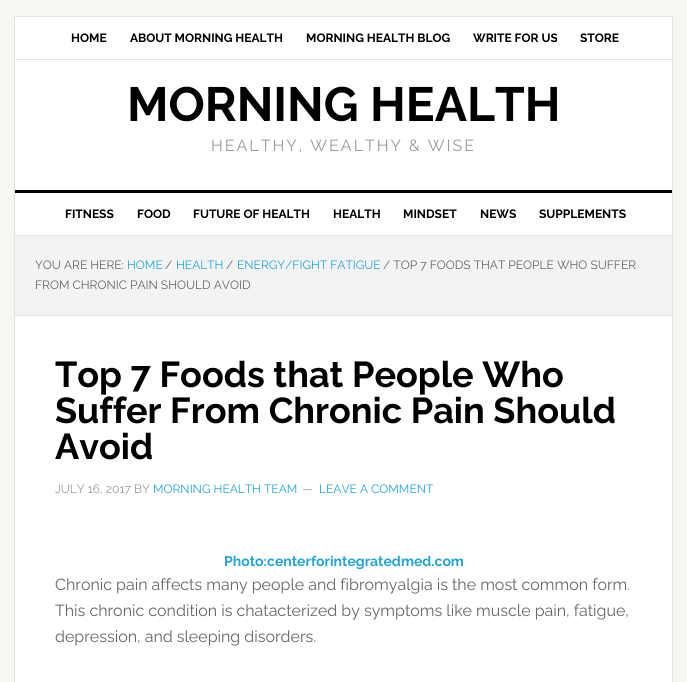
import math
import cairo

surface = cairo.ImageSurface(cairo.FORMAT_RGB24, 687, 682)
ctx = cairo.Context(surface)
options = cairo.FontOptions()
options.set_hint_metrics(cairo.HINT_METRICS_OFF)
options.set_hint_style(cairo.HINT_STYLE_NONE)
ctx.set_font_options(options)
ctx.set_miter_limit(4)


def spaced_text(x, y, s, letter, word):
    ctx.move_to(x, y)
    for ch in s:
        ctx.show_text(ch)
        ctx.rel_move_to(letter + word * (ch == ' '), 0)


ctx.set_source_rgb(0.965, 0.961, 0.949)
ctx.paint()
ctx.set_source_rgb(1, 1, 1)
ctx.rectangle(14.5, 16.5, 658, 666)
ctx.fill_preserve()
ctx.set_source_rgb(0.89, 0.89, 0.89)
ctx.set_line_width(1)
ctx.stroke()
ctx.rectangle(15, 59, 657, 1)
ctx.fill()
ctx.select_font_face("Raleway", cairo.FONT_SLANT_NORMAL, cairo.FONT_WEIGHT_BOLD)
ctx.set_font_size(12)
ctx.set_source_rgb(0, 0, 0)
ctx.move_to(71, 42)
ctx.show_text("HOME")
ctx.move_to(130, 42)
ctx.show_text("ABOUT MORNING HEALTH")
ctx.move_to(306, 42)
ctx.show_text("MORNING HEALTH BLOG")
ctx.move_to(473, 42)
ctx.show_text("WRITE FOR US")
ctx.move_to(580, 42)
ctx.show_text("STORE")
ctx.rectangle(15, 190, 657, 3)
ctx.fill()
ctx.set_font_size(48)
ctx.move_to(127, 121)
ctx.show_text("MORNING HEALTH")
ctx.select_font_face("Raleway")
ctx.set_font_size(16)
ctx.set_source_rgb(0.6, 0.6, 0.6)
spaced_text(211, 151, "HEALTHY, WEALTHY & WISE", 2, 0)
ctx.set_source_rgb(0.89, 0.89, 0.89)
ctx.rectangle(15, 235, 657, 1)
ctx.fill()
ctx.select_font_face("Raleway", cairo.FONT_SLANT_NORMAL, cairo.FONT_WEIGHT_BOLD)
ctx.set_font_size(12)
ctx.set_source_rgb(0, 0, 0)
ctx.move_to(65, 218)
ctx.show_text("FITNESS")
ctx.move_to(137, 218)
ctx.show_text("FOOD")
ctx.move_to(193, 218)
ctx.show_text("FUTURE OF HEALTH")
ctx.move_to(333, 218)
ctx.show_text("HEALTH")
ctx.move_to(403, 218)
ctx.show_text("MINDSET")
ctx.move_to(480, 218)
ctx.show_text("NEWS")
ctx.move_to(539, 218)
ctx.show_text("SUPPLEMENTS")
ctx.set_source_rgb(0.953, 0.953, 0.953)
ctx.rectangle(15, 236, 657, 79)
ctx.fill()
ctx.set_source_rgb(0.89, 0.89, 0.89)
ctx.rectangle(15, 315, 657, 1)
ctx.fill()
ctx.select_font_face("Raleway")
ctx.set_source_rgb(0.4, 0.4, 0.4)
ctx.move_to(35, 269)
ctx.show_text("YOU ARE HERE:")
ctx.set_source_rgb(0.153, 0.639, 0.82)
ctx.move_to(127, 269)
ctx.show_text("HOME")
ctx.set_source_rgb(0.4, 0.4, 0.4)
ctx.move_to(165, 269)
ctx.show_text("/")
ctx.set_source_rgb(0.153, 0.639, 0.82)
ctx.move_to(176, 269)
ctx.show_text("HEALTH")
ctx.set_source_rgb(0.4, 0.4, 0.4)
ctx.move_to(226, 269)
ctx.show_text("/")
ctx.set_source_rgb(0.153, 0.639, 0.82)
ctx.move_to(237, 269)
ctx.show_text("ENERGY/FIGHT FATIGUE")
ctx.set_source_rgb(0.4, 0.4, 0.4)
ctx.move_to(383, 269)
ctx.show_text("/ TOP 7 FOODS THAT PEOPLE WHO SUFFER")
ctx.move_to(35, 289)
ctx.show_text("FROM CHRONIC PAIN SHOULD AVOID")
ctx.select_font_face("Raleway", cairo.FONT_SLANT_NORMAL, cairo.FONT_WEIGHT_BOLD)
ctx.set_font_size(36)
ctx.set_source_rgb(0, 0, 0)
ctx.move_to(55, 387)
ctx.show_text("Top 7 Foods that People Who")
ctx.move_to(55, 423)
ctx.show_text("Suffer From Chronic Pain Should")
ctx.move_to(55, 459)
ctx.show_text("Avoid")
ctx.select_font_face("Raleway")
ctx.set_font_size(12)
ctx.set_source_rgb(0.6, 0.6, 0.6)
ctx.move_to(55, 493)
ctx.show_text("JULY 16, 2017 BY")
ctx.set_source_rgb(0.153, 0.639, 0.82)
ctx.move_to(153, 493)
ctx.show_text("MORNING HEALTH TEAM")
ctx.set_source_rgb(0.6, 0.6, 0.6)
ctx.move_to(302, 493)
ctx.show_text("—")
ctx.set_source_rgb(0.153, 0.639, 0.82)
ctx.move_to(319, 493)
ctx.show_text("LEAVE A COMMENT")
ctx.select_font_face("Raleway", cairo.FONT_SLANT_NORMAL, cairo.FONT_WEIGHT_BOLD)
ctx.set_font_size(14)
ctx.move_to(224, 566)
ctx.show_text("Photo:centerforintegratedmed.com")
ctx.select_font_face("Raleway")
ctx.set_font_size(16)
ctx.set_source_rgb(0.4, 0.4, 0.4)
ctx.move_to(55, 590)
ctx.show_text("Chronic pain affects many people and fibromyalgia is the most common form.")
ctx.move_to(55, 616)
ctx.show_text("This chronic condition is chatacterized by symptoms like muscle pain, fatigue,")
ctx.move_to(55, 642)
ctx.show_text("depression, and sleeping disorders.")
surface.write_to_png("page.png")
